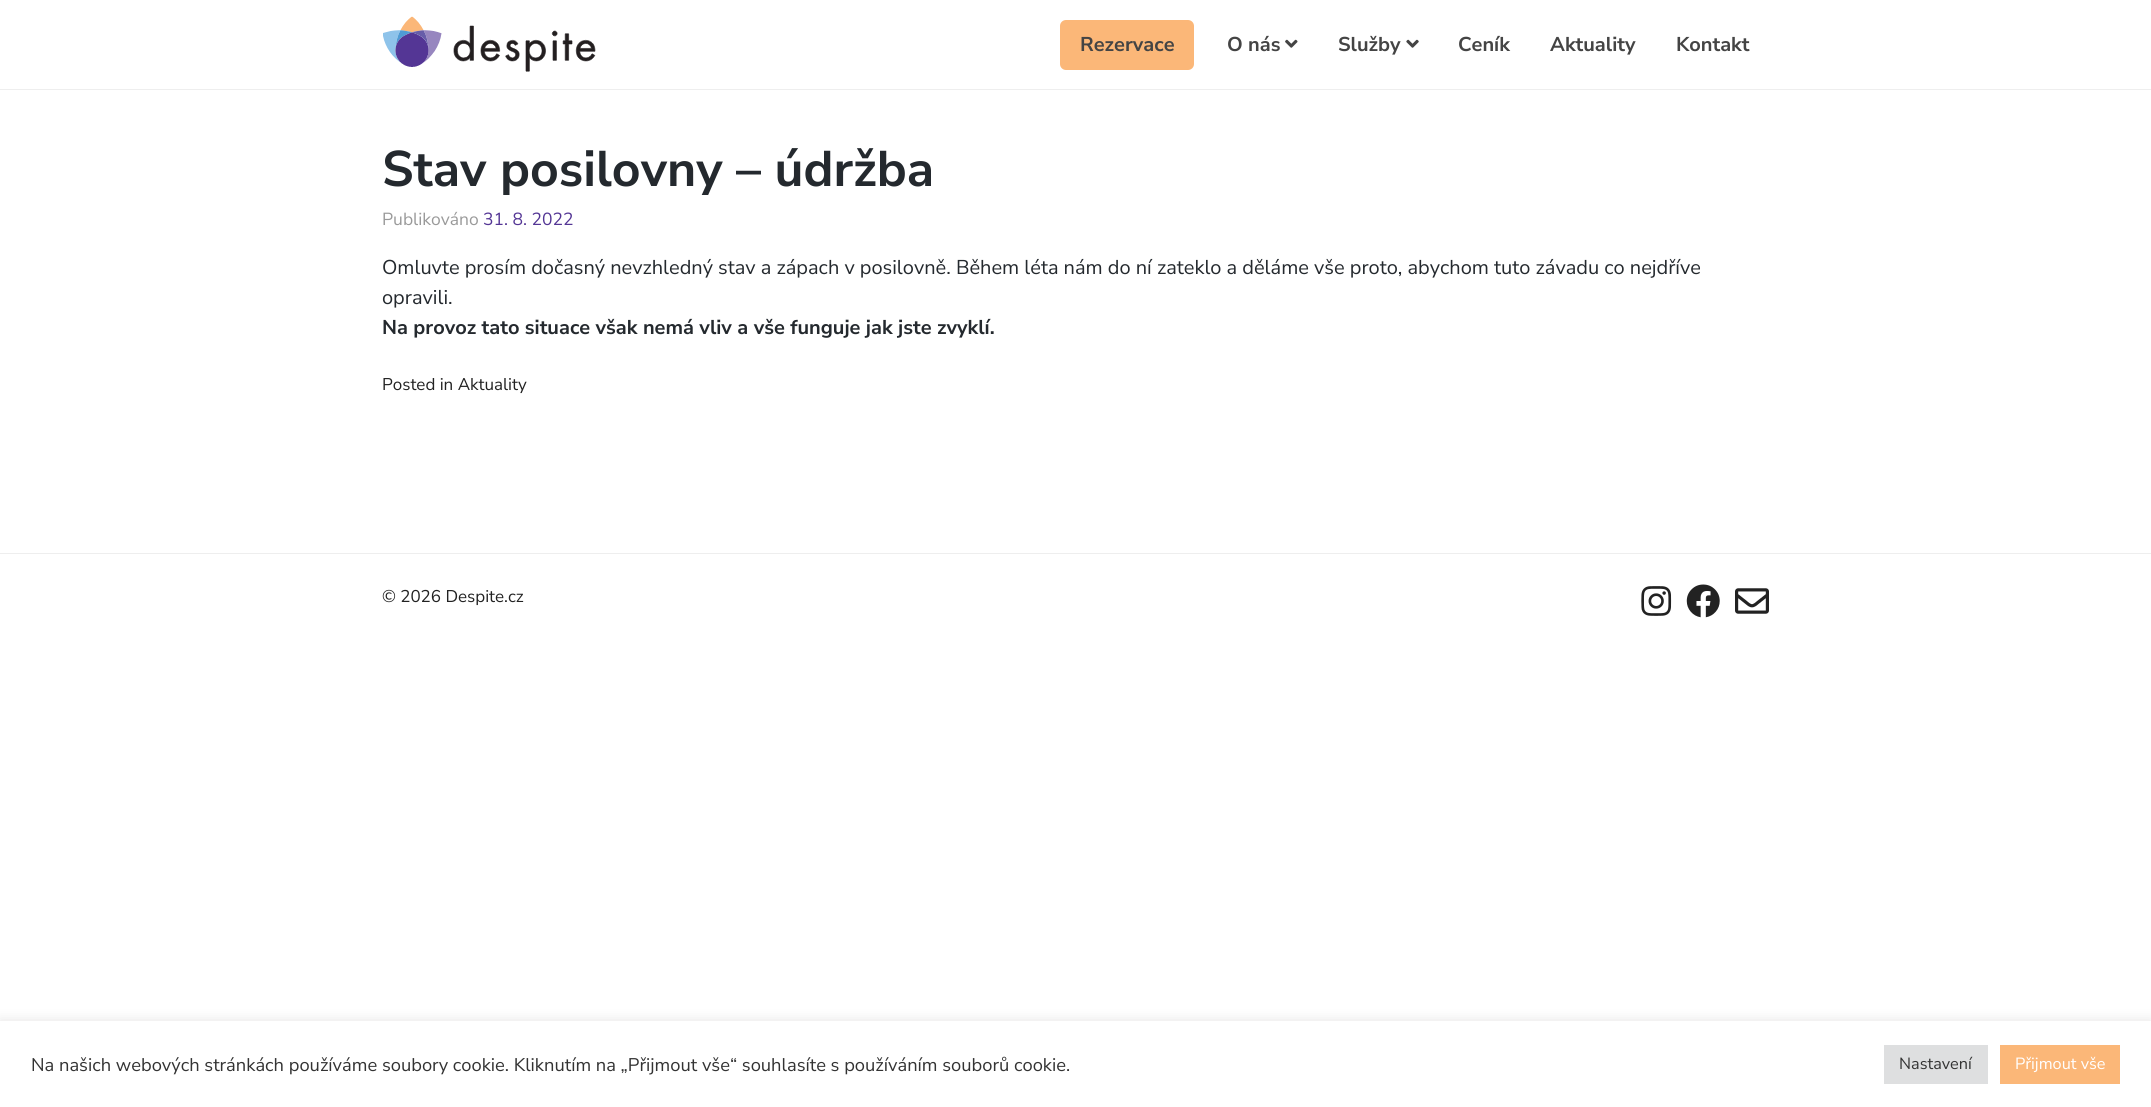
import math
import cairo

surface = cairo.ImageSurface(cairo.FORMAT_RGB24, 2151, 1107)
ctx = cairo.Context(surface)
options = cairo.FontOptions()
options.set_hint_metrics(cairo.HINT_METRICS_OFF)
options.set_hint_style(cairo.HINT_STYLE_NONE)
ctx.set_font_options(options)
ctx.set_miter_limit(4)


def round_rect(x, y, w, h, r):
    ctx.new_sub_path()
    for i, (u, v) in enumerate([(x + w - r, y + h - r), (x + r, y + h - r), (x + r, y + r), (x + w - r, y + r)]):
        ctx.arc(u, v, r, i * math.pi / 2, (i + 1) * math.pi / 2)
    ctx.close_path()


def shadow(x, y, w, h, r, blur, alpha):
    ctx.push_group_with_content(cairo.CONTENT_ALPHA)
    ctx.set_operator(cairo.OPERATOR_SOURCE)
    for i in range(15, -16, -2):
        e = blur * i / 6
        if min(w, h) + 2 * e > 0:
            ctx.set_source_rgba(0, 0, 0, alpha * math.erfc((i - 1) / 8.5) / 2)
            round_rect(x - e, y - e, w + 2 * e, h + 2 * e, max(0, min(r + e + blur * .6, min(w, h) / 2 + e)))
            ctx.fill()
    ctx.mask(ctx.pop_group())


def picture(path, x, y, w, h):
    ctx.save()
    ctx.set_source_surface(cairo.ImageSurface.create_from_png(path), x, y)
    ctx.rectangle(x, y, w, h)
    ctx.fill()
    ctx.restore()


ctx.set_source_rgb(1, 1, 1)
ctx.paint()
ctx.set_source_rgb(0.933, 0.933, 0.933)
ctx.rectangle(0, 89, 2151, 1)
ctx.fill()
picture("img1.png", 383, 16, 213, 56)
ctx.set_source_rgb(0.984, 0.718, 0.471)
round_rect(1060, 20, 134, 50, 6)
ctx.fill()
ctx.select_font_face("Nunito Sans", cairo.FONT_SLANT_NORMAL, cairo.FONT_WEIGHT_BOLD)
ctx.set_font_size(20)
ctx.set_source_rgb(0.267, 0.267, 0.267)
ctx.move_to(1080, 51)
ctx.show_text("Rezervace")
ctx.move_to(1227, 51)
ctx.show_text("O nás")
picture("img2.png", 1285, 39, 13, 9)
ctx.move_to(1338, 51)
ctx.show_text("Služby")
picture("img3.png", 1406, 39, 13, 9)
ctx.move_to(1458, 51)
ctx.show_text("Ceník")
ctx.move_to(1550, 51)
ctx.show_text("Aktuality")
ctx.move_to(1676, 51)
ctx.show_text("Kontakt")
ctx.set_font_size(50)
ctx.set_source_rgb(0.141, 0.161, 0.18)
ctx.move_to(382, 186)
ctx.show_text("Stav posilovny – údržba")
ctx.select_font_face("Nunito Sans")
ctx.set_font_size(17.5)
ctx.set_source_rgb(0.604, 0.604, 0.604)
ctx.move_to(382, 225)
ctx.show_text("Publikováno")
ctx.set_source_rgb(0.329, 0.212, 0.584)
ctx.move_to(483, 225)
ctx.show_text("31. 8. 2022")
ctx.set_font_size(20)
ctx.set_source_rgb(0.141, 0.161, 0.18)
ctx.move_to(382, 274)
ctx.show_text("Omluvte prosím dočasný nevzhledný stav a zápach v posilovně. Během léta nám do ní zateklo a děláme vše proto, abychom tuto závadu co nejdříve")
ctx.move_to(382, 304)
ctx.show_text("opravili.")
ctx.select_font_face("Nunito Sans", cairo.FONT_SLANT_NORMAL, cairo.FONT_WEIGHT_BOLD)
ctx.move_to(382, 334)
ctx.show_text("Na provoz tato situace však nemá vliv a vše funguje jak jste zvyklí.")
ctx.select_font_face("Nunito Sans")
ctx.set_font_size(17)
ctx.set_source_rgb(0.133, 0.133, 0.133)
ctx.move_to(382, 390)
ctx.show_text("Posted in Aktuality")
ctx.set_source_rgb(0.933, 0.933, 0.933)
ctx.rectangle(0, 553, 2151, 1)
ctx.fill()
ctx.set_source_rgb(0.133, 0.133, 0.133)
ctx.move_to(382, 602)
ctx.show_text("© 2026 Despite.cz")
picture("img4.png", 1641, 586, 31, 30)
picture("img5.png", 1686, 584, 34, 34)
picture("img6.png", 1735, 588, 34, 26)
ctx.set_source_rgb(0.675, 0.671, 0.671)
shadow(0, 1020, 2151, 86, 0, 6, 0.3)
ctx.set_source_rgb(1, 1, 1)
ctx.rectangle(0, 1021, 2151, 86)
ctx.fill()
ctx.set_font_size(18.33)
ctx.set_source_rgb(0.2, 0.2, 0.2)
ctx.move_to(31, 1071)
ctx.show_text("Na našich webových stránkách používáme soubory cookie. Kliknutím na „Přijmout vše“ souhlasíte s používáním souborů cookie.")
ctx.set_source_rgb(0.871, 0.875, 0.878)
ctx.rectangle(1884, 1045, 104, 39)
ctx.fill()
ctx.set_font_size(16.25)
ctx.set_source_rgb(0.2, 0.2, 0.2)
ctx.move_to(1899, 1069)
ctx.show_text("Nastavení")
ctx.set_source_rgb(0.984, 0.718, 0.471)
ctx.rectangle(2000, 1045, 120, 39)
ctx.fill()
ctx.set_source_rgb(1, 1, 1)
ctx.move_to(2015, 1069)
ctx.show_text("Přijmout vše")
surface.write_to_png("page.png")
